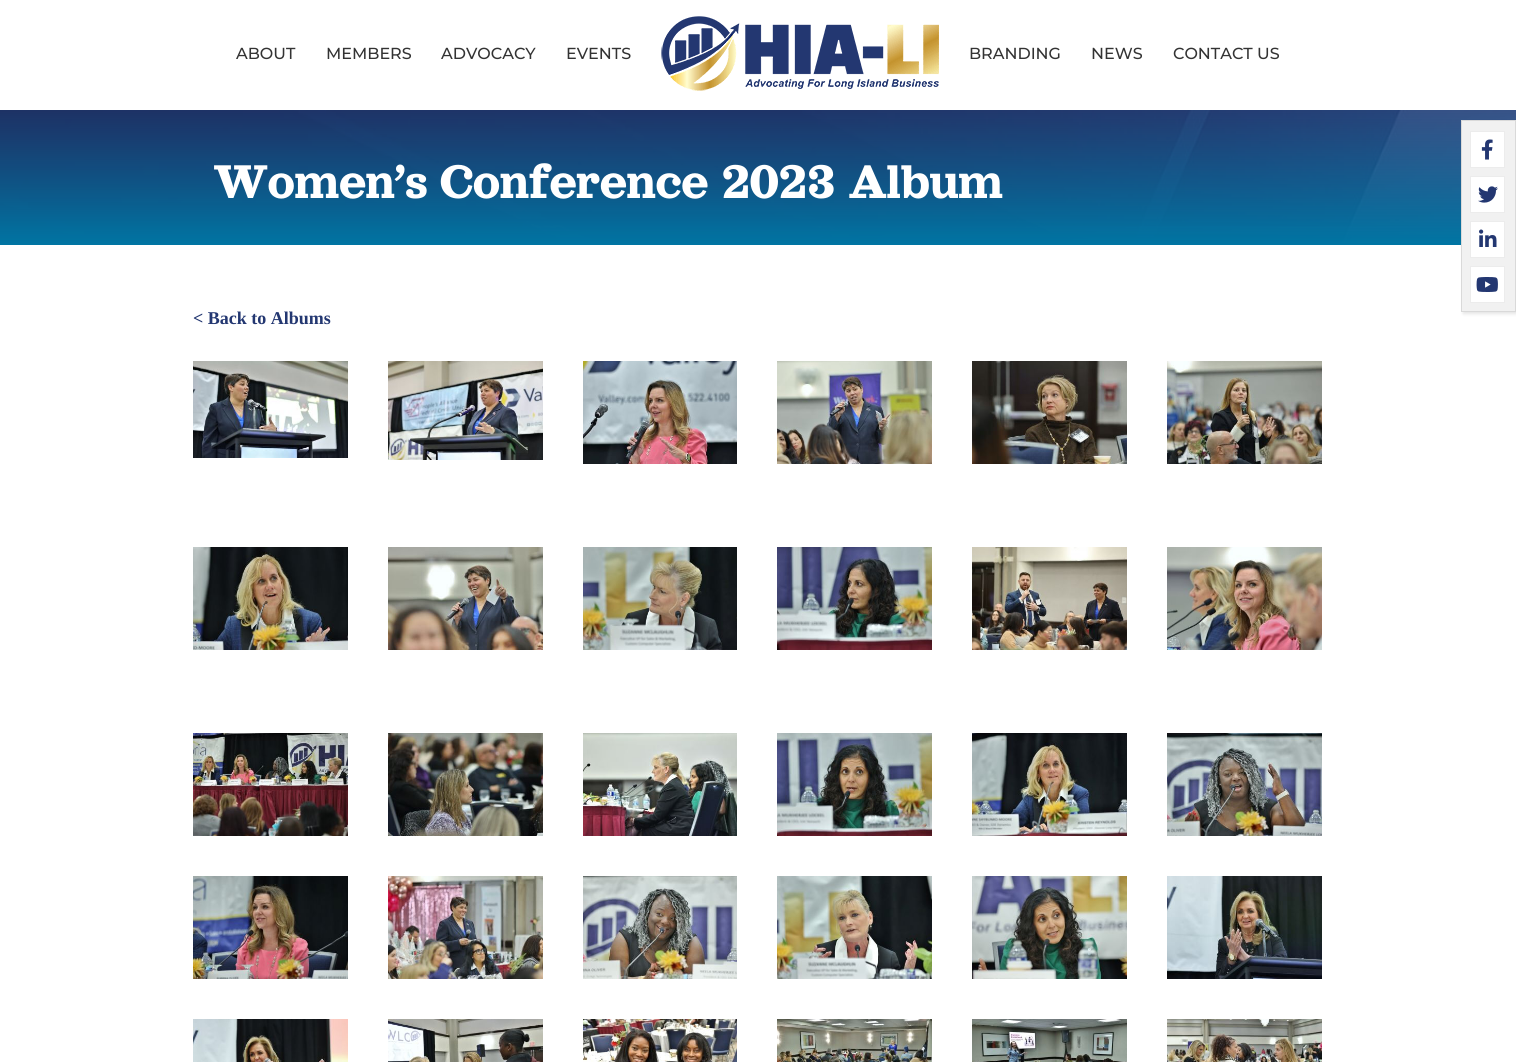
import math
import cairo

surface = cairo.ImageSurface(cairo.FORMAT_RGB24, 1516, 1062)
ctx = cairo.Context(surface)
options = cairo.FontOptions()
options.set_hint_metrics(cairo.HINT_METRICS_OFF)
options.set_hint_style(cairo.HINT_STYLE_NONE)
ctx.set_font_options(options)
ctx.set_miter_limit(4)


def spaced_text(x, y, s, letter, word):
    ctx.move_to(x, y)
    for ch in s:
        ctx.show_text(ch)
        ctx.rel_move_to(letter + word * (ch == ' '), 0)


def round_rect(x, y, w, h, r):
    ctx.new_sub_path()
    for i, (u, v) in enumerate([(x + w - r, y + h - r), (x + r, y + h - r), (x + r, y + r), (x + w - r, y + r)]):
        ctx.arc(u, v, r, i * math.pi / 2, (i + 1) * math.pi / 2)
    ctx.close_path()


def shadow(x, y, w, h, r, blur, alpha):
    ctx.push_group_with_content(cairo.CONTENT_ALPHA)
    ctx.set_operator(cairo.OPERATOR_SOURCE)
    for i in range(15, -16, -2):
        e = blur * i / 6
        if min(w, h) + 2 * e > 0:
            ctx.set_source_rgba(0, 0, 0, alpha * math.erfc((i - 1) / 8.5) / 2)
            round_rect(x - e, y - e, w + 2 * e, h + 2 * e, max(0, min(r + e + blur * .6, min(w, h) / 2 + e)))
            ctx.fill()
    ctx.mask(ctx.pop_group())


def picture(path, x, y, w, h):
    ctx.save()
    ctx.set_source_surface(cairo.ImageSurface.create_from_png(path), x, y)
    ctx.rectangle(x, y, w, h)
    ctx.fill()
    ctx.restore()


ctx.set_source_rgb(1, 1, 1)
ctx.paint()
ctx.select_font_face("Montserrat Medium")
ctx.set_font_size(16)
ctx.set_source_rgb(0.2, 0.2, 0.2)
ctx.move_to(236, 59)
ctx.show_text("ABOUT")
ctx.move_to(326, 59)
ctx.show_text("MEMBERS")
ctx.move_to(441, 59)
ctx.show_text("ADVOCACY")
ctx.move_to(566, 59)
ctx.show_text("EVENTS")
picture("img1.png", 661, 16, 278, 75)
ctx.move_to(969, 59)
ctx.show_text("BRANDING")
ctx.move_to(1091, 59)
ctx.show_text("NEWS")
ctx.move_to(1173, 59)
ctx.show_text("CONTACT US")
picture("img2.png", 0, 110, 1516, 135)
ctx.select_font_face("Orelega One")
ctx.set_font_size(54)
ctx.set_source_rgb(1, 1, 1)
spaced_text(213, 198, "Women’s Conference 2023 Album", -1, 0)
ctx.select_font_face("Liberation Serif", cairo.FONT_SLANT_NORMAL, cairo.FONT_WEIGHT_BOLD)
ctx.set_font_size(18)
ctx.set_source_rgb(0.137, 0.216, 0.443)
ctx.move_to(193, 324)
ctx.show_text("< Back to Albums")
picture("img3.png", 193, 361, 155, 97)
picture("img4.png", 388, 361, 155, 99)
picture("img5.png", 583, 361, 154, 103)
picture("img6.png", 777, 361, 155, 103)
picture("img7.png", 972, 361, 155, 103)
picture("img8.png", 1167, 361, 155, 103)
picture("img9.png", 193, 547, 155, 103)
picture("img10.png", 388, 547, 155, 103)
picture("img11.png", 583, 547, 154, 103)
picture("img12.png", 777, 547, 155, 103)
picture("img13.png", 972, 547, 155, 103)
picture("img14.png", 1167, 547, 155, 103)
picture("img15.png", 193, 733, 155, 103)
picture("img16.png", 388, 733, 155, 103)
picture("img17.png", 583, 733, 154, 103)
picture("img18.png", 777, 733, 155, 103)
picture("img19.png", 972, 733, 155, 103)
picture("img20.png", 1167, 733, 155, 103)
picture("img21.png", 193, 876, 155, 103)
picture("img22.png", 388, 876, 155, 103)
picture("img23.png", 583, 876, 154, 103)
picture("img24.png", 777, 876, 155, 103)
picture("img25.png", 972, 876, 155, 103)
picture("img26.png", 1167, 876, 155, 103)
picture("img27.png", 193, 1019, 155, 43)
picture("img28.png", 388, 1019, 155, 43)
picture("img29.png", 583, 1019, 154, 43)
picture("img30.png", 777, 1019, 155, 43)
picture("img31.png", 972, 1019, 155, 43)
picture("img32.png", 1167, 1019, 155, 43)
ctx.set_source_rgb(0, 0, 0)
shadow(1463, 122, 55, 192, 0, 1.5, 0.1)
ctx.set_source_rgb(0.945, 0.945, 0.945)
ctx.rectangle(1461.5, 120.5, 54, 191)
ctx.fill_preserve()
ctx.set_source_rgb(0.851, 0.851, 0.851)
ctx.set_line_width(1)
ctx.stroke()
ctx.set_source_rgb(1, 1, 1)
ctx.rectangle(1470.5, 131.5, 34, 36)
ctx.fill_preserve()
ctx.set_source_rgb(0.922, 0.922, 0.922)
ctx.stroke()
picture("img33.png", 1481, 139, 12, 21)
ctx.set_source_rgb(1, 1, 1)
ctx.rectangle(1470.5, 176.5, 34, 36)
ctx.fill_preserve()
ctx.set_source_rgb(0.922, 0.922, 0.922)
ctx.stroke()
picture("img34.png", 1478, 186, 20, 17)
ctx.set_source_rgb(1, 1, 1)
ctx.rectangle(1470.5, 221.5, 34, 36)
ctx.fill_preserve()
ctx.set_source_rgb(0.922, 0.922, 0.922)
ctx.stroke()
picture("img35.png", 1479, 229, 18, 18)
ctx.set_source_rgb(1, 1, 1)
ctx.rectangle(1470.5, 266.5, 34, 36)
ctx.fill_preserve()
ctx.set_source_rgb(0.922, 0.922, 0.922)
ctx.stroke()
picture("img36.png", 1476, 277, 22, 15)
surface.write_to_png("page.png")
